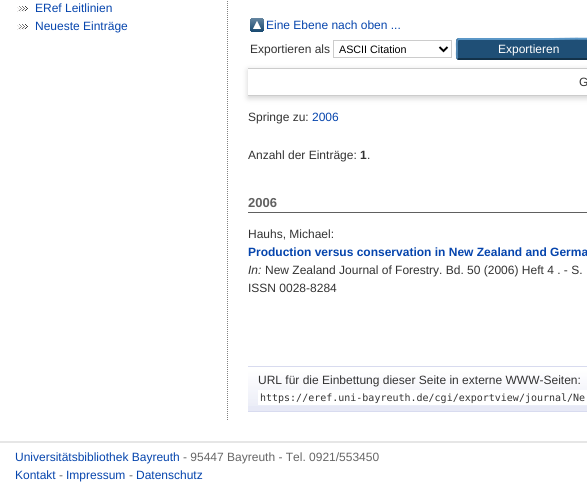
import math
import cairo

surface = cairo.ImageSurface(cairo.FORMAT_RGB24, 587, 487)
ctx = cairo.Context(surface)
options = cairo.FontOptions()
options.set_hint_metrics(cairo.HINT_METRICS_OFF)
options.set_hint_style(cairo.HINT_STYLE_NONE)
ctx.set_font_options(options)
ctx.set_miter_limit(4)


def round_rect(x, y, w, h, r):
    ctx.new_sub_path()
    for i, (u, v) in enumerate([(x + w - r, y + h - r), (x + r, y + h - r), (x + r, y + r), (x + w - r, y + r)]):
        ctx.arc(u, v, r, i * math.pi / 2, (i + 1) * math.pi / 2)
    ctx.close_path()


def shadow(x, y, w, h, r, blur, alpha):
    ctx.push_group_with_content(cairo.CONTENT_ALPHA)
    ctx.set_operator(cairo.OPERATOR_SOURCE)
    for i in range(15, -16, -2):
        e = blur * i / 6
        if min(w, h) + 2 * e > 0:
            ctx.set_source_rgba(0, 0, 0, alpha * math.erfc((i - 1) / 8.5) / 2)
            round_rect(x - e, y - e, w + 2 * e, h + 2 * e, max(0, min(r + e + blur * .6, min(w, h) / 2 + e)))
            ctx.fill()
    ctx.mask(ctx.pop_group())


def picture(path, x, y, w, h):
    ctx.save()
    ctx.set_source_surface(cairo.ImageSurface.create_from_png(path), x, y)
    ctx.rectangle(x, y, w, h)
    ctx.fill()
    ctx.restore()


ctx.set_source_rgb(1, 1, 1)
ctx.paint()
picture("img1.png", 17, 6, 11, 6)
ctx.select_font_face("Liberation Sans")
ctx.set_font_size(12)
ctx.set_source_rgb(0.024, 0.271, 0.678)
ctx.move_to(35, 12)
ctx.show_text("ERef Leitlinien")
picture("img1.png", 17, 24, 11, 6)
ctx.move_to(35, 30)
ctx.show_text("Neueste Einträge")
ctx.new_path()
ctx.move_to(227.5, -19)
ctx.line_to(227.5, 421)
ctx.set_source_rgb(0.502, 0.502, 0.502)
ctx.set_line_width(1)
ctx.set_dash([1, 1])
ctx.stroke()
picture("img2.png", 250, 18, 14, 14)
ctx.set_source_rgb(0.024, 0.271, 0.678)
ctx.move_to(266, 29)
ctx.show_text("Eine Ebene nach oben ...")
ctx.set_source_rgb(0.2, 0.2, 0.2)
ctx.move_to(250, 53)
ctx.show_text("Exportieren als")
ctx.rectangle(333.5, 40.5, 118, 17)
ctx.set_source_rgb(0.8, 0.8, 0.8)
ctx.set_dash([])
ctx.stroke()
ctx.new_path()
ctx.move_to(439.5, 47)
ctx.line_to(443.5, 51)
ctx.line_to(447.5, 47)
ctx.set_source_rgb(0, 0, 0)
ctx.set_line_width(2)
ctx.stroke()
ctx.set_font_size(10.75)
ctx.move_to(339, 53)
ctx.show_text("ASCII Citation")
ctx.set_source_rgb(0.122, 0.31, 0.463)
round_rect(456, 38, 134, 22, 3)
ctx.fill()
ctx.new_path()
ctx.move_to(457.5, 39.5)
ctx.line_to(459, 39)
ctx.line_to(551.5, 39)
ctx.curve_to(554.5, 39, 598, 38, 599.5, 39.5)
ctx.set_source_rgb(0.357, 0.592, 0.78)
ctx.stroke()
ctx.new_path()
ctx.move_to(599.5, 39.5)
ctx.curve_to(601, 41, 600, 47, 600, 49)
ctx.curve_to(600, 50.5, 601.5, 59, 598, 59)
ctx.line_to(459, 59)
ctx.line_to(457.5, 58.5)
ctx.set_source_rgb(0.075, 0.196, 0.29)
ctx.stroke()
ctx.new_path()
ctx.move_to(457.5, 58.5)
ctx.curve_to(456.5, 57, 457, 51, 457, 49)
ctx.curve_to(457, 47, 456.5, 41, 457.5, 39.5)
ctx.set_source_rgb(0.322, 0.529, 0.702)
ctx.stroke()
ctx.set_font_size(12)
ctx.set_source_rgb(1, 1, 1)
ctx.move_to(498, 53)
ctx.show_text("Exportieren")
ctx.save()
ctx.set_fill_rule(cairo.FILL_RULE_EVEN_ODD)
ctx.new_path()
ctx.move_to(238, 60)
ctx.line_to(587, 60)
ctx.line_to(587, 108)
ctx.line_to(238, 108)
ctx.close_path()
ctx.move_to(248, 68)
ctx.line_to(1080, 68)
ctx.line_to(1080, 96)
ctx.line_to(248, 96)
ctx.close_path()
ctx.clip()
ctx.set_source_rgb(0.392, 0.392, 0.392)
shadow(248, 70, 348, 28, 0, 3, 0.3)
ctx.restore()
ctx.set_source_rgb(0.8, 0.8, 0.8)
ctx.rectangle(248, 68, 339, 1)
ctx.fill()
ctx.rectangle(248, 95, 339, 1)
ctx.fill()
ctx.set_source_rgb(0.2, 0.2, 0.2)
ctx.move_to(579, 86)
ctx.show_text("G")
ctx.move_to(248, 121)
ctx.show_text("Springe zu:")
ctx.set_source_rgb(0.024, 0.271, 0.678)
ctx.move_to(312, 121)
ctx.show_text("2006")
ctx.set_source_rgb(0.2, 0.2, 0.2)
ctx.move_to(248, 159)
ctx.show_text("Anzahl der Einträge:")
ctx.select_font_face("Liberation Sans", cairo.FONT_SLANT_NORMAL, cairo.FONT_WEIGHT_BOLD)
ctx.move_to(360, 159)
ctx.show_text("1")
ctx.select_font_face("Liberation Sans")
ctx.move_to(367, 159)
ctx.show_text(".")
ctx.set_source_rgb(0.376, 0.376, 0.376)
ctx.rectangle(248, 212, 339, 1)
ctx.fill()
ctx.select_font_face("Liberation Sans", cairo.FONT_SLANT_NORMAL, cairo.FONT_WEIGHT_BOLD)
ctx.set_font_size(13)
ctx.move_to(248, 207)
ctx.show_text("2006")
ctx.select_font_face("Liberation Sans")
ctx.set_font_size(12)
ctx.set_source_rgb(0.2, 0.2, 0.2)
ctx.move_to(248, 238)
ctx.show_text("Hauhs, Michael:")
ctx.select_font_face("Liberation Sans", cairo.FONT_SLANT_NORMAL, cairo.FONT_WEIGHT_BOLD)
ctx.set_source_rgb(0.024, 0.271, 0.678)
ctx.move_to(248, 256)
ctx.show_text("Production versus conservation in New Zealand and Germa")
ctx.select_font_face("Liberation Sans", cairo.FONT_SLANT_ITALIC)
ctx.set_source_rgb(0.2, 0.2, 0.2)
ctx.move_to(248, 274)
ctx.show_text("In:")
ctx.select_font_face("Liberation Sans")
ctx.move_to(265, 274)
ctx.show_text("New Zealand Journal of Forestry. Bd. 50 (2006) Heft 4 . - S.")
ctx.move_to(248, 292)
ctx.show_text("ISSN 0028-8284")
ctx.set_source_rgb(0.906, 0.914, 0.961)
ctx.rectangle(248, 406, 339, 5)
ctx.fill()
picture("img3.png", 248, 367, 339, 39)
ctx.set_source_rgb(0.847, 0.859, 0.937)
ctx.rectangle(248, 366, 339, 1)
ctx.fill()
ctx.rectangle(248, 411, 339, 1)
ctx.fill()
ctx.set_source_rgb(0.2, 0.2, 0.2)
ctx.move_to(258, 384)
ctx.show_text("URL für die Einbettung dieser Seite in externe WWW-Seiten:")
ctx.set_source_rgb(1, 1, 1)
ctx.rectangle(258, 390, 329, 15)
ctx.fill()
ctx.select_font_face("DejaVu Sans Mono")
ctx.set_font_size(10)
ctx.set_source_rgb(0.2, 0.2, 0.2)
ctx.move_to(260, 401)
ctx.show_text("https://eref.uni-bayreuth.de/cgi/exportview/journal/Ne")
ctx.set_source_rgb(0.902, 0.902, 0.902)
ctx.rectangle(0, 441, 587, 2)
ctx.fill()
ctx.select_font_face("Liberation Sans")
ctx.set_font_size(12)
ctx.set_source_rgb(0.024, 0.271, 0.678)
ctx.move_to(15, 461)
ctx.show_text("Universitätsbibliothek Bayreuth")
ctx.set_source_rgb(0.4, 0.4, 0.4)
ctx.move_to(183, 461)
ctx.show_text("- 95447 Bayreuth - Tel. 0921/553450")
ctx.set_source_rgb(0.024, 0.271, 0.678)
ctx.move_to(15, 479)
ctx.show_text("Kontakt")
ctx.set_source_rgb(0.4, 0.4, 0.4)
ctx.move_to(59, 479)
ctx.show_text("-")
ctx.set_source_rgb(0.024, 0.271, 0.678)
ctx.move_to(66, 479)
ctx.show_text("Impressum")
ctx.set_source_rgb(0.4, 0.4, 0.4)
ctx.move_to(129, 479)
ctx.show_text("-")
ctx.set_source_rgb(0.024, 0.271, 0.678)
ctx.move_to(136, 479)
ctx.show_text("Datenschutz")
surface.write_to_png("page.png")
